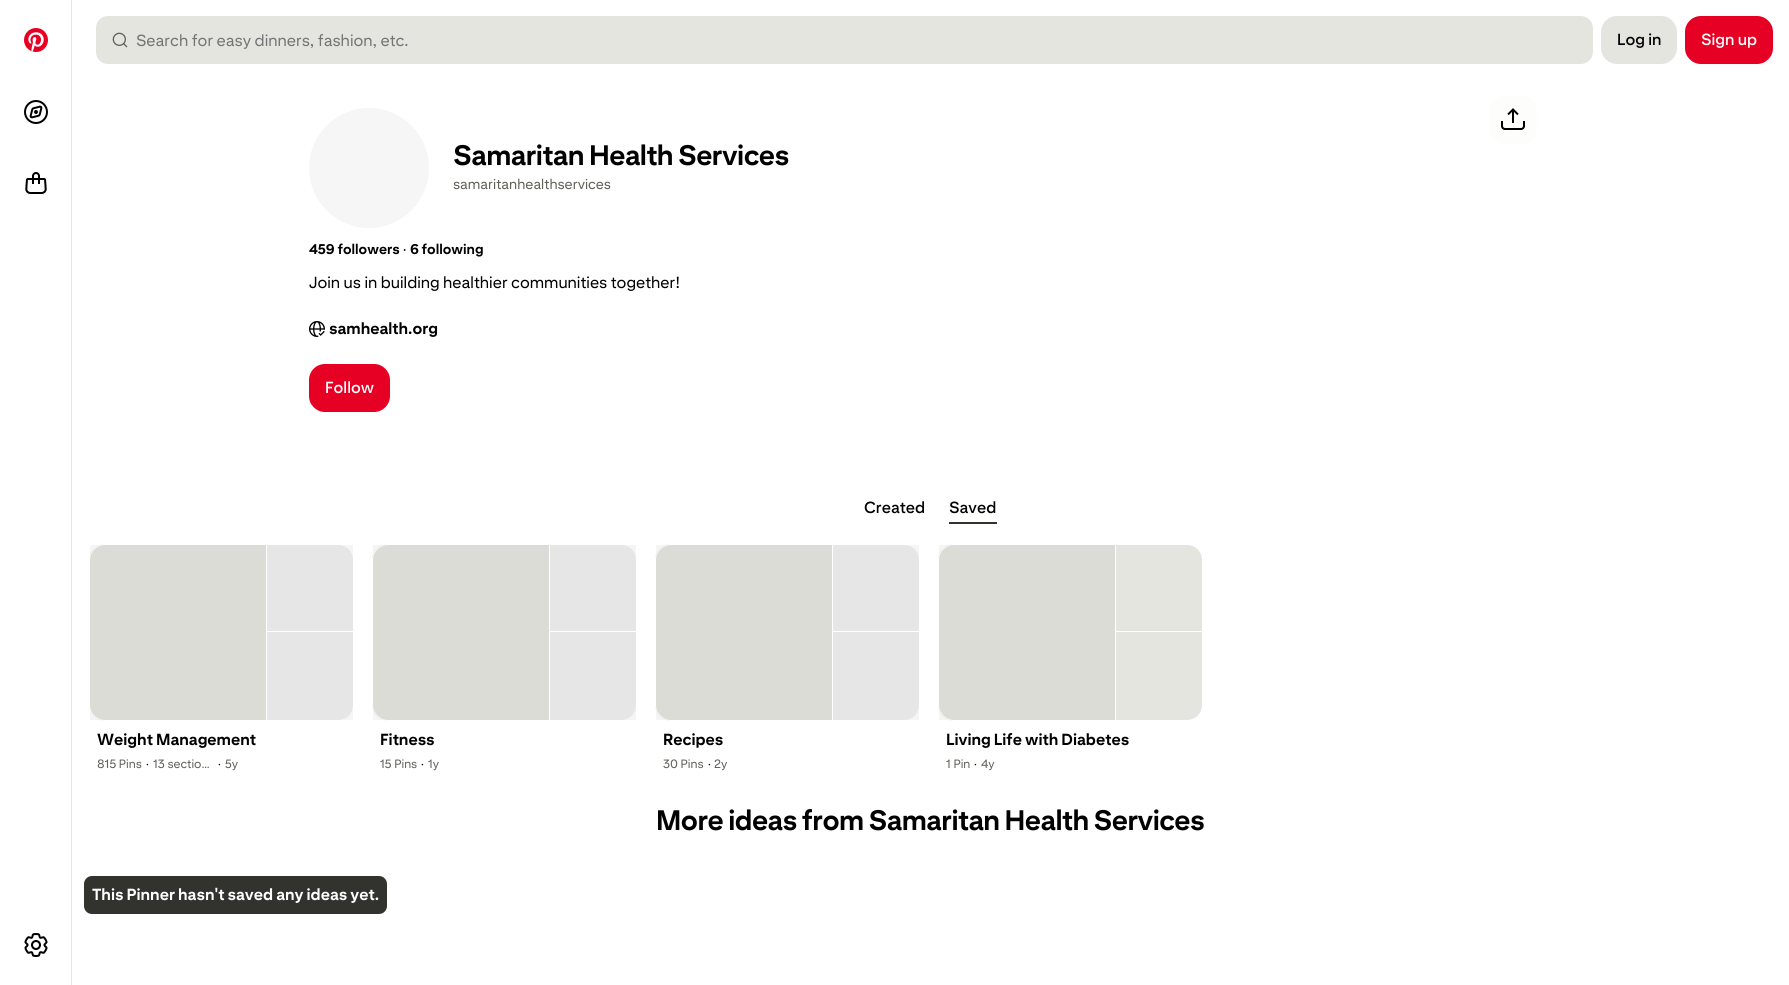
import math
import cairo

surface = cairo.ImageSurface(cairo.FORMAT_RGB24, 1789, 985)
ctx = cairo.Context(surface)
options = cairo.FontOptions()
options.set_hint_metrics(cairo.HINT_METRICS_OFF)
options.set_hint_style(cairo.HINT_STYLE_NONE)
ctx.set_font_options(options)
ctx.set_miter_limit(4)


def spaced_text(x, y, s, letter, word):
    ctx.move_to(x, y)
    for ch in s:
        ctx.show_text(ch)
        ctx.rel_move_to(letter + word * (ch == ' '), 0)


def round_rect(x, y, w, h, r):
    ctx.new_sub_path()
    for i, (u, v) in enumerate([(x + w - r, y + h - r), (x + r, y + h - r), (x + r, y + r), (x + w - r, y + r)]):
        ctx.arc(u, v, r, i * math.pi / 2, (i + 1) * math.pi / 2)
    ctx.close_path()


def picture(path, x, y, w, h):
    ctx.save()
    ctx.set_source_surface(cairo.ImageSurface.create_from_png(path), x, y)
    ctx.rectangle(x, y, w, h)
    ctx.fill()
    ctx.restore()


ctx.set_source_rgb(1, 1, 1)
ctx.paint()
ctx.set_source_rgb(0.898, 0.898, 0.878)
ctx.rectangle(71, 0, 1, 985)
ctx.fill()
picture("img1.png", 24, 28, 24, 24)
picture("img2.png", 24, 100, 24, 24)
picture("img3.png", 25, 172, 22, 22)
picture("img4.png", 24, 933, 24, 24)
round_rect(96, 16, 1497, 48, 12)
ctx.fill()
picture("img5.png", 112, 32, 16, 16)
ctx.select_font_face("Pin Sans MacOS")
ctx.set_font_size(16)
ctx.set_source_rgb(0.459, 0.459, 0.459)
ctx.move_to(136, 46)
ctx.show_text("Search for easy dinners, fashion, etc.")
ctx.set_source_rgb(0.898, 0.898, 0.878)
round_rect(1601, 16, 76, 48, 16)
ctx.fill()
ctx.select_font_face("Pin Sans MacOS Medium")
ctx.set_source_rgb(0, 0, 0)
ctx.move_to(1617, 45)
ctx.show_text("Log in")
ctx.set_source_rgb(0.902, 0, 0.137)
round_rect(1685, 16, 88, 48, 16)
ctx.fill()
ctx.set_source_rgb(1, 1, 1)
ctx.move_to(1701, 45)
ctx.show_text("Sign up")
ctx.set_source_rgb(0.992, 0.992, 0.988)
round_rect(1489, 96, 48, 48, 16)
ctx.fill()
picture("img6.png", 1501, 108, 24, 22)
ctx.set_source_rgb(0.961, 0.961, 0.961)
ctx.arc(369, 168, 60, 0, 2 * math.pi)
ctx.fill()
ctx.select_font_face("Pin Sans MacOS", cairo.FONT_SLANT_NORMAL, cairo.FONT_WEIGHT_BOLD)
ctx.set_font_size(28)
ctx.set_source_rgb(0, 0, 0)
spaced_text(453, 165, "Samaritan Health Services", -0.5, 0)
ctx.select_font_face("Pin Sans MacOS")
ctx.set_font_size(14)
ctx.set_source_rgb(0.384, 0.384, 0.357)
ctx.move_to(453, 189)
ctx.show_text("samaritanhealthservices")
ctx.select_font_face("Pin Sans MacOS", cairo.FONT_SLANT_NORMAL, cairo.FONT_WEIGHT_BOLD)
ctx.set_source_rgb(0, 0, 0)
ctx.move_to(309, 254)
ctx.show_text("459 followers")
ctx.select_font_face("Pin Sans MacOS")
ctx.move_to(403, 254)
ctx.show_text("·")
ctx.select_font_face("Pin Sans MacOS", cairo.FONT_SLANT_NORMAL, cairo.FONT_WEIGHT_BOLD)
ctx.move_to(410, 254)
ctx.show_text("6 following")
ctx.select_font_face("Pin Sans MacOS")
ctx.set_font_size(16)
ctx.move_to(309, 288)
ctx.show_text("Join us in building healthier communities together!")
picture("img7.png", 309, 321, 16, 16)
ctx.select_font_face("Pin Sans MacOS", cairo.FONT_SLANT_NORMAL, cairo.FONT_WEIGHT_BOLD)
ctx.move_to(329, 334)
ctx.show_text("samhealth.org")
ctx.set_source_rgb(0.902, 0, 0.137)
round_rect(309, 364, 81, 48, 16)
ctx.fill()
ctx.select_font_face("Pin Sans MacOS Medium")
ctx.set_source_rgb(1, 1, 1)
ctx.move_to(325, 393)
ctx.show_text("Follow")
ctx.set_source_rgb(0, 0, 0)
ctx.move_to(864, 513)
ctx.show_text("Created")
ctx.move_to(949, 513)
ctx.show_text("Saved")
ctx.set_source_rgb(0.2, 0.2, 0.18)
ctx.rectangle(949, 522, 48, 2)
ctx.fill()
ctx.set_source_rgb(0.898, 0.898, 0.878)
ctx.new_path()
ctx.move_to(105, 544)
ctx.line_to(266, 544)
ctx.line_to(266, 721)
ctx.line_to(105, 721)
ctx.curve_to(96, 721, 89, 714, 89, 705)
ctx.line_to(89, 560)
ctx.curve_to(89, 551, 96, 544, 105, 544)
ctx.close_path()
ctx.fill()
ctx.set_source_rgb(1, 1, 1)
ctx.new_path()
ctx.move_to(105, 544)
ctx.line_to(266, 544)
ctx.line_to(266, 545)
ctx.line_to(105, 545)
ctx.curve_to(97, 545, 90, 552, 90, 560)
ctx.line_to(90, 705)
ctx.curve_to(90, 713, 97, 720, 105, 720)
ctx.line_to(266, 720)
ctx.line_to(266, 721)
ctx.line_to(105, 721)
ctx.curve_to(96, 721, 89, 714, 89, 705)
ctx.line_to(89, 560)
ctx.curve_to(89, 551, 96, 544, 105, 544)
ctx.close_path()
ctx.fill()
ctx.set_source_rgba(0, 0, 0, 0.04)
ctx.rectangle(90, 545, 176, 175)
ctx.fill()
ctx.set_source_rgb(0.937, 0.937, 0.937)
ctx.new_path()
ctx.move_to(267, 545)
ctx.line_to(338, 545)
ctx.curve_to(346.5, 545, 353, 551.5, 353, 560)
ctx.line_to(353, 631)
ctx.line_to(267, 631)
ctx.close_path()
ctx.fill()
ctx.set_source_rgba(0, 0, 0, 0.04)
ctx.rectangle(267, 545, 86, 86)
ctx.fill()
ctx.set_source_rgb(0.937, 0.937, 0.937)
ctx.new_path()
ctx.move_to(267, 632)
ctx.line_to(353, 632)
ctx.line_to(353, 705)
ctx.curve_to(353, 713.5, 346.5, 720, 338, 720)
ctx.line_to(267, 720)
ctx.close_path()
ctx.fill()
ctx.set_source_rgba(0, 0, 0, 0.04)
ctx.rectangle(267, 632, 86, 88)
ctx.fill()
ctx.select_font_face("Pin Sans MacOS", cairo.FONT_SLANT_NORMAL, cairo.FONT_WEIGHT_BOLD)
ctx.set_source_rgb(0, 0, 0)
ctx.move_to(97, 745)
ctx.show_text("Weight Management")
ctx.select_font_face("Pin Sans MacOS")
ctx.set_font_size(12)
ctx.set_source_rgb(0.384, 0.384, 0.357)
ctx.move_to(97, 768)
ctx.show_text("815 Pins")
ctx.set_source_rgb(0, 0, 0)
ctx.move_to(146, 768)
ctx.show_text("·")
ctx.set_source_rgb(0.384, 0.384, 0.357)
ctx.move_to(153, 768)
ctx.show_text("13 sectio…")
ctx.set_source_rgb(0, 0, 0)
ctx.move_to(218, 768)
ctx.show_text("·")
ctx.set_source_rgb(0.384, 0.384, 0.357)
ctx.move_to(225, 768)
ctx.show_text("5y")
ctx.set_source_rgb(0.898, 0.898, 0.878)
ctx.new_path()
ctx.move_to(388, 544)
ctx.line_to(549, 544)
ctx.line_to(549, 721)
ctx.line_to(388, 721)
ctx.curve_to(379, 721, 372, 714, 372, 705)
ctx.line_to(372, 560)
ctx.curve_to(372, 551, 379, 544, 388, 544)
ctx.close_path()
ctx.fill()
ctx.set_source_rgb(1, 1, 1)
ctx.new_path()
ctx.move_to(388, 544)
ctx.line_to(549, 544)
ctx.line_to(549, 545)
ctx.line_to(388, 545)
ctx.curve_to(380, 545, 373, 552, 373, 560)
ctx.line_to(373, 705)
ctx.curve_to(373, 713, 380, 720, 388, 720)
ctx.line_to(549, 720)
ctx.line_to(549, 721)
ctx.line_to(388, 721)
ctx.curve_to(379, 721, 372, 714, 372, 705)
ctx.line_to(372, 560)
ctx.curve_to(372, 551, 379, 544, 388, 544)
ctx.close_path()
ctx.fill()
ctx.set_source_rgba(0, 0, 0, 0.04)
ctx.rectangle(373, 545, 176, 175)
ctx.fill()
ctx.set_source_rgb(0.937, 0.937, 0.937)
ctx.new_path()
ctx.move_to(550, 545)
ctx.line_to(621, 545)
ctx.curve_to(629.5, 545, 636, 551.5, 636, 560)
ctx.line_to(636, 631)
ctx.line_to(550, 631)
ctx.close_path()
ctx.fill()
ctx.set_source_rgba(0, 0, 0, 0.04)
ctx.rectangle(550, 545, 86, 86)
ctx.fill()
ctx.set_source_rgb(0.937, 0.937, 0.937)
ctx.new_path()
ctx.move_to(550, 632)
ctx.line_to(636, 632)
ctx.line_to(636, 705)
ctx.curve_to(636, 713.5, 629.5, 720, 621, 720)
ctx.line_to(550, 720)
ctx.close_path()
ctx.fill()
ctx.set_source_rgba(0, 0, 0, 0.04)
ctx.rectangle(550, 632, 86, 88)
ctx.fill()
ctx.select_font_face("Pin Sans MacOS", cairo.FONT_SLANT_NORMAL, cairo.FONT_WEIGHT_BOLD)
ctx.set_font_size(16)
ctx.set_source_rgb(0, 0, 0)
ctx.move_to(380, 745)
ctx.show_text("Fitness")
ctx.select_font_face("Pin Sans MacOS")
ctx.set_font_size(12)
ctx.set_source_rgb(0.384, 0.384, 0.357)
ctx.move_to(380, 768)
ctx.show_text("15 Pins")
ctx.set_source_rgb(0, 0, 0)
ctx.move_to(421, 768)
ctx.show_text("·")
ctx.set_source_rgb(0.384, 0.384, 0.357)
ctx.move_to(428, 768)
ctx.show_text("1y")
ctx.set_source_rgb(0.898, 0.898, 0.878)
ctx.new_path()
ctx.move_to(671, 544)
ctx.line_to(832, 544)
ctx.line_to(832, 721)
ctx.line_to(671, 721)
ctx.curve_to(662, 721, 655, 714, 655, 705)
ctx.line_to(655, 560)
ctx.curve_to(655, 551, 662, 544, 671, 544)
ctx.close_path()
ctx.fill()
ctx.set_source_rgb(1, 1, 1)
ctx.new_path()
ctx.move_to(671, 544)
ctx.line_to(832, 544)
ctx.line_to(832, 545)
ctx.line_to(671, 545)
ctx.curve_to(663, 545, 656, 552, 656, 560)
ctx.line_to(656, 705)
ctx.curve_to(656, 713, 663, 720, 671, 720)
ctx.line_to(832, 720)
ctx.line_to(832, 721)
ctx.line_to(671, 721)
ctx.curve_to(662, 721, 655, 714, 655, 705)
ctx.line_to(655, 560)
ctx.curve_to(655, 551, 662, 544, 671, 544)
ctx.close_path()
ctx.fill()
ctx.set_source_rgba(0, 0, 0, 0.04)
ctx.rectangle(656, 545, 176, 175)
ctx.fill()
ctx.set_source_rgb(0.937, 0.937, 0.937)
ctx.new_path()
ctx.move_to(833, 545)
ctx.line_to(904, 545)
ctx.curve_to(912.5, 545, 919, 551.5, 919, 560)
ctx.line_to(919, 631)
ctx.line_to(833, 631)
ctx.close_path()
ctx.fill()
ctx.set_source_rgba(0, 0, 0, 0.04)
ctx.rectangle(833, 545, 86, 86)
ctx.fill()
ctx.set_source_rgb(0.937, 0.937, 0.937)
ctx.new_path()
ctx.move_to(833, 632)
ctx.line_to(919, 632)
ctx.line_to(919, 705)
ctx.curve_to(919, 713.5, 912.5, 720, 904, 720)
ctx.line_to(833, 720)
ctx.close_path()
ctx.fill()
ctx.set_source_rgba(0, 0, 0, 0.04)
ctx.rectangle(833, 632, 86, 88)
ctx.fill()
ctx.select_font_face("Pin Sans MacOS", cairo.FONT_SLANT_NORMAL, cairo.FONT_WEIGHT_BOLD)
ctx.set_font_size(16)
ctx.set_source_rgb(0, 0, 0)
ctx.move_to(663, 745)
ctx.show_text("Recipes")
ctx.select_font_face("Pin Sans MacOS")
ctx.set_font_size(12)
ctx.set_source_rgb(0.384, 0.384, 0.357)
ctx.move_to(663, 768)
ctx.show_text("30 Pins")
ctx.set_source_rgb(0, 0, 0)
ctx.move_to(708, 768)
ctx.show_text("·")
ctx.set_source_rgb(0.384, 0.384, 0.357)
ctx.move_to(714, 768)
ctx.show_text("2y")
ctx.set_source_rgb(0.898, 0.898, 0.878)
ctx.new_path()
ctx.move_to(954, 544)
ctx.line_to(1115, 544)
ctx.line_to(1115, 721)
ctx.line_to(954, 721)
ctx.curve_to(945, 721, 938, 714, 938, 705)
ctx.line_to(938, 560)
ctx.curve_to(938, 551, 945, 544, 954, 544)
ctx.close_path()
ctx.fill()
ctx.set_source_rgb(1, 1, 1)
ctx.new_path()
ctx.move_to(954, 544)
ctx.line_to(1115, 544)
ctx.line_to(1115, 545)
ctx.line_to(954, 545)
ctx.curve_to(946, 545, 939, 552, 939, 560)
ctx.line_to(939, 705)
ctx.curve_to(939, 713, 946, 720, 954, 720)
ctx.line_to(1115, 720)
ctx.line_to(1115, 721)
ctx.line_to(954, 721)
ctx.curve_to(945, 721, 938, 714, 938, 705)
ctx.line_to(938, 560)
ctx.curve_to(938, 551, 945, 544, 954, 544)
ctx.close_path()
ctx.fill()
ctx.set_source_rgba(0, 0, 0, 0.04)
ctx.rectangle(939, 545, 176, 175)
ctx.fill()
ctx.set_source_rgb(0.898, 0.898, 0.878)
ctx.new_path()
ctx.move_to(1116, 545)
ctx.line_to(1187, 545)
ctx.curve_to(1195.5, 545, 1202, 551.5, 1202, 560)
ctx.line_to(1202, 631)
ctx.line_to(1116, 631)
ctx.close_path()
ctx.fill()
ctx.new_path()
ctx.move_to(1116, 632)
ctx.line_to(1202, 632)
ctx.line_to(1202, 705)
ctx.curve_to(1202, 713.5, 1195.5, 720, 1187, 720)
ctx.line_to(1116, 720)
ctx.close_path()
ctx.fill()
ctx.select_font_face("Pin Sans MacOS", cairo.FONT_SLANT_NORMAL, cairo.FONT_WEIGHT_BOLD)
ctx.set_font_size(16)
ctx.set_source_rgb(0, 0, 0)
ctx.move_to(946, 745)
ctx.show_text("Living Life with Diabetes")
ctx.select_font_face("Pin Sans MacOS")
ctx.set_font_size(12)
ctx.set_source_rgb(0.384, 0.384, 0.357)
ctx.move_to(946, 768)
ctx.show_text("1 Pin")
ctx.set_source_rgb(0, 0, 0)
ctx.move_to(974, 768)
ctx.show_text("·")
ctx.set_source_rgb(0.384, 0.384, 0.357)
ctx.move_to(981, 768)
ctx.show_text("4y")
ctx.select_font_face("Pin Sans MacOS", cairo.FONT_SLANT_NORMAL, cairo.FONT_WEIGHT_BOLD)
ctx.set_font_size(28)
ctx.set_source_rgb(0, 0, 0)
spaced_text(656, 830, "More ideas from Samaritan Health Services", -0.5, 0)
ctx.set_source_rgb(0.2, 0.2, 0.18)
round_rect(84, 876, 303, 38, 8)
ctx.fill()
ctx.set_font_size(16)
ctx.set_source_rgb(1, 1, 1)
ctx.move_to(92, 900)
ctx.show_text("This Pinner hasn't saved any ideas yet.")
surface.write_to_png("page.png")
